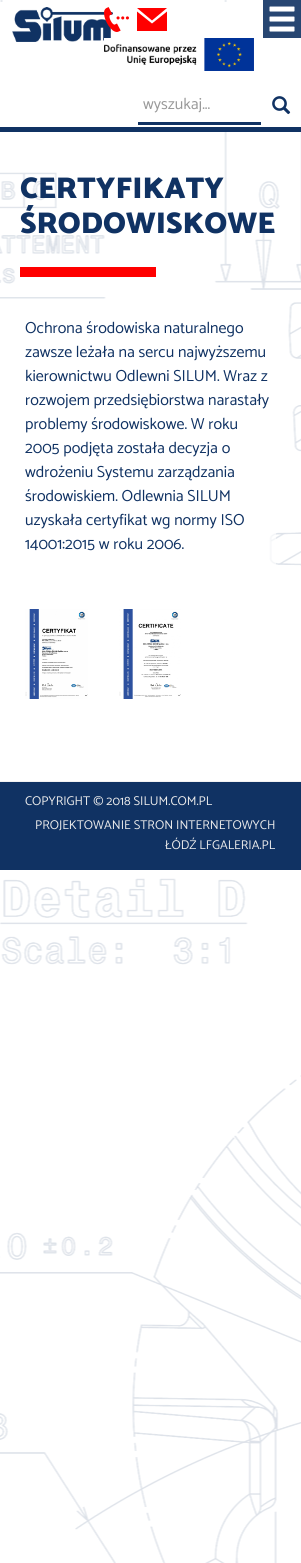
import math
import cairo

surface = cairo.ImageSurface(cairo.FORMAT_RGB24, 301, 1563)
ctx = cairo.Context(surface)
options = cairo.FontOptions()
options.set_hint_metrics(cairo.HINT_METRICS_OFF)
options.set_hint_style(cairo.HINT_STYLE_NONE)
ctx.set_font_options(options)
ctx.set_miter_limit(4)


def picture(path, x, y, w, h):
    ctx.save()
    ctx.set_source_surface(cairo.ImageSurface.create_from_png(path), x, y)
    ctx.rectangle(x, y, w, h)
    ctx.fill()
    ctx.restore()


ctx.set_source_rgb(1, 1, 1)
ctx.paint()
picture("img1.png", 0, 0, 301, 1563)
ctx.set_source_rgb(1, 1, 1)
ctx.rectangle(0, 2, 301, 125)
ctx.fill()
ctx.set_source_rgba(0.063, 0.196, 0.388, 0.9)
ctx.rectangle(263, 0, 38, 38)
ctx.fill()
picture("img2.png", 269, 6, 26, 26)
picture("img3.png", 12, 7, 101, 35)
picture("img4.png", 104, 7, 25, 25)
ctx.set_source_rgb(1, 0, 0)
ctx.set_fill_rule(cairo.FILL_RULE_EVEN_ODD)
ctx.new_path()
ctx.move_to(152, 20.5)
ctx.line_to(137, 8)
ctx.line_to(167, 8)
ctx.close_path()
ctx.move_to(152, 23.5)
ctx.line_to(137, 11.5)
ctx.line_to(137, 31)
ctx.line_to(167, 31)
ctx.line_to(167, 11.5)
ctx.close_path()
ctx.fill()
picture("img5.png", 104, 38, 150, 33)
ctx.set_source_rgb(0.063, 0.196, 0.388)
ctx.rectangle(138, 122, 123, 3)
ctx.fill()
ctx.select_font_face("Catamaran")
ctx.set_font_size(16)
ctx.set_source_rgb(0.6, 0.6, 0.6)
ctx.move_to(143, 109)
ctx.show_text("wyszukaj...")
picture("img6.png", 272, 96, 19, 19)
ctx.set_source_rgb(0.063, 0.196, 0.388)
ctx.rectangle(0, 127, 301, 5)
ctx.fill()
ctx.select_font_face("Catamaran Black")
ctx.set_font_size(30)
ctx.move_to(20, 198)
ctx.show_text("CERTYFIKATY")
ctx.move_to(20, 233)
ctx.show_text("ŚRODOWISKOWE")
ctx.set_source_rgb(1, 0, 0)
ctx.rectangle(20, 267, 136, 10)
ctx.fill()
ctx.set_source_rgba(1, 1, 1, 0.65)
ctx.rectangle(269, 533, 7, 32)
ctx.fill()
ctx.select_font_face("Catamaran")
ctx.set_font_size(16)
ctx.set_source_rgb(0.063, 0.196, 0.388)
ctx.move_to(25, 333)
ctx.show_text("Ochrona środowiska naturalnego")
ctx.move_to(25, 357)
ctx.show_text("zawsze leżała na sercu najwyższemu")
ctx.move_to(25, 381)
ctx.show_text("kierownictwu Odlewni SILUM. Wraz z")
ctx.move_to(25, 405)
ctx.show_text("rozwojem przedsiębiorstwa narastały")
ctx.move_to(25, 429)
ctx.show_text("problemy środowiskowe. W roku")
ctx.move_to(25, 453)
ctx.show_text("2005 podjęta została decyzja o")
ctx.move_to(25, 477)
ctx.show_text("wdrożeniu Systemu zarządzania")
ctx.move_to(25, 501)
ctx.show_text("środowiskiem. Odlewnia SILUM")
ctx.move_to(25, 525)
ctx.show_text("uzyskała certyfikat wg normy ISO")
ctx.move_to(25, 549)
ctx.show_text("14001:2015 w roku 2006.")
picture("img7.png", 25, 609, 63, 90)
picture("img8.png", 119, 609, 62, 90)
ctx.rectangle(0, 782, 301, 88)
ctx.fill()
ctx.set_source_rgb(0.949, 0.949, 0.949)
ctx.rectangle(0, 781, 301, 1)
ctx.fill()
ctx.set_font_size(12.75)
ctx.set_source_rgb(0.918, 0.918, 0.918)
ctx.move_to(25, 805)
ctx.show_text("COPYRIGHT © 2018 SILUM.COM.PL")
ctx.move_to(35, 829)
ctx.show_text("PROJEKTOWANIE STRON INTERNETOWYCH")
ctx.move_to(165, 849)
ctx.show_text("ŁÓDŹ LFGALERIA.PL")
surface.write_to_png("page.png")
